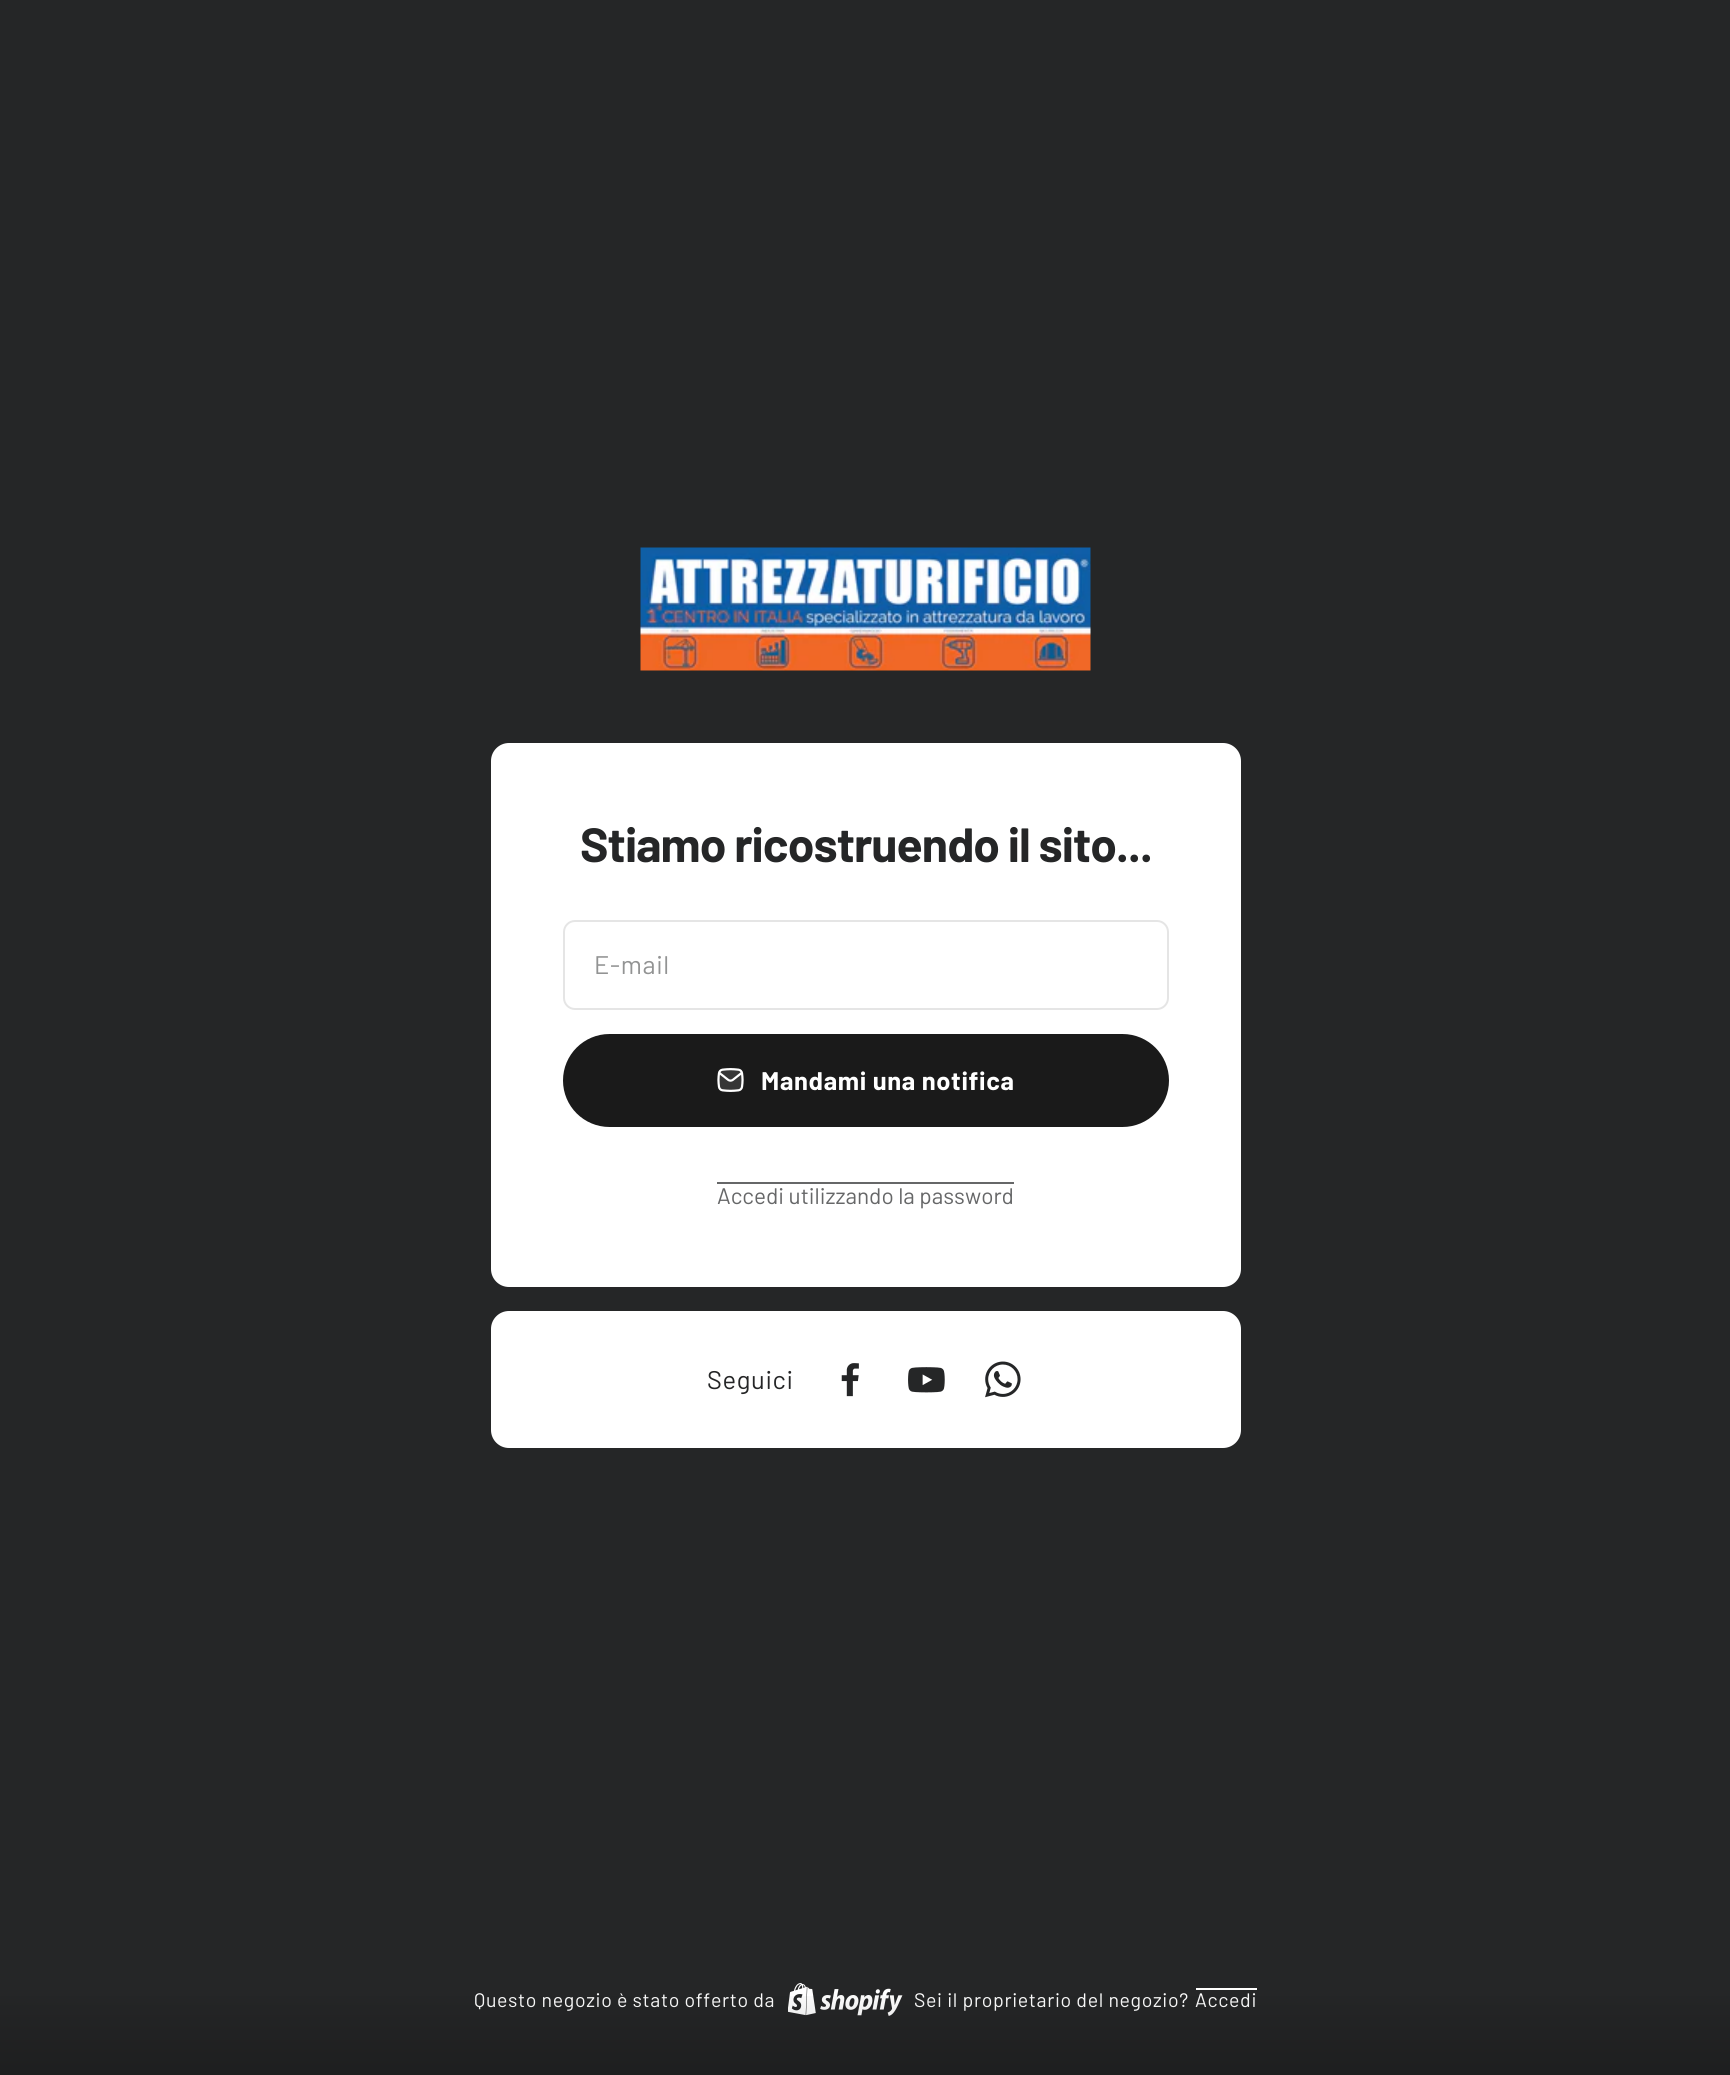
import math
import cairo

surface = cairo.ImageSurface(cairo.FORMAT_RGB24, 1730, 2075)
ctx = cairo.Context(surface)
options = cairo.FontOptions()
options.set_hint_metrics(cairo.HINT_METRICS_OFF)
options.set_hint_style(cairo.HINT_STYLE_NONE)
ctx.set_font_options(options)
ctx.set_miter_limit(4)


def spaced_text(x, y, s, letter, word):
    ctx.move_to(x, y)
    for ch in s:
        ctx.show_text(ch)
        ctx.rel_move_to(letter + word * (ch == ' '), 0)


def round_rect(x, y, w, h, r):
    ctx.new_sub_path()
    for i, (u, v) in enumerate([(x + w - r, y + h - r), (x + r, y + h - r), (x + r, y + r), (x + w - r, y + r)]):
        ctx.arc(u, v, r, i * math.pi / 2, (i + 1) * math.pi / 2)
    ctx.close_path()


def picture(path, x, y, w, h):
    ctx.save()
    ctx.set_source_surface(cairo.ImageSurface.create_from_png(path), x, y)
    ctx.rectangle(x, y, w, h)
    ctx.fill()
    ctx.restore()


ctx.set_source_rgb(0.145, 0.149, 0.153)
ctx.paint()
picture("img1.png", 640, 547, 451, 124)
ctx.set_source_rgb(1, 1, 1)
round_rect(491, 743, 750, 544, 18)
ctx.fill()
ctx.select_font_face("Barlow", cairo.FONT_SLANT_NORMAL, cairo.FONT_WEIGHT_BOLD)
ctx.set_font_size(48)
ctx.set_source_rgb(0.145, 0.149, 0.153)
spaced_text(580, 862, "Stiamo ricostruendo il sito...", -0.95, 0)
round_rect(564, 921, 604, 88, 11)
ctx.set_source_rgb(0.898, 0.898, 0.898)
ctx.stroke()
ctx.select_font_face("Barlow")
ctx.set_font_size(25.5)
ctx.set_source_rgb(0.573, 0.576, 0.576)
spaced_text(594, 974, "E-mail", 0.65, 0)
ctx.set_source_rgb(0.102, 0.102, 0.102)
round_rect(563, 1034, 606, 93, 46.5)
ctx.fill()
picture("img2.png", 717, 1068, 27, 24)
ctx.select_font_face("Barlow", cairo.FONT_SLANT_NORMAL, cairo.FONT_WEIGHT_BOLD)
ctx.set_source_rgb(1, 1, 1)
spaced_text(761, 1090, "Mandami una notifica", 0.65, 0)
ctx.select_font_face("Barlow")
ctx.set_font_size(22.5)
ctx.set_source_rgb(0.4, 0.404, 0.408)
ctx.move_to(717, 1204)
ctx.show_text("Accedi utilizzando la password")
ctx.rectangle(717, 1182, 297, 2)
ctx.fill()
ctx.set_source_rgb(1, 1, 1)
round_rect(491, 1311, 750, 137, 18)
ctx.fill()
ctx.set_font_size(25.5)
ctx.set_source_rgb(0.145, 0.149, 0.153)
spaced_text(707, 1389, "Seguici", 0.65, 0)
picture("img3.png", 841, 1363, 18, 34)
picture("img4.png", 908, 1367, 37, 26)
picture("img5.png", 985, 1361, 36, 37)
ctx.set_font_size(19.5)
ctx.set_source_rgb(1, 1, 1)
spaced_text(474, 2007, "Questo negozio è stato offerto da", 0.65, 0)
picture("img6.png", 788, 1983, 115, 33)
spaced_text(914, 2007, "Sei il proprietario del negozio?", 0.65, 0)
spaced_text(1195, 2007, "Accedi", 0.65, 0)
ctx.rectangle(1196, 1988, 61, 2)
ctx.fill()
gradient = cairo.LinearGradient(866, 1986, 866, 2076)
gradient.add_color_stop_rgba(0, 0, 0, 0, 0)
gradient.add_color_stop_rgba(1, 0, 0, 0, 0.2)
ctx.set_source(gradient)
ctx.rectangle(0, 1996, 1730, 79)
ctx.fill()
surface.write_to_png("page.png")
